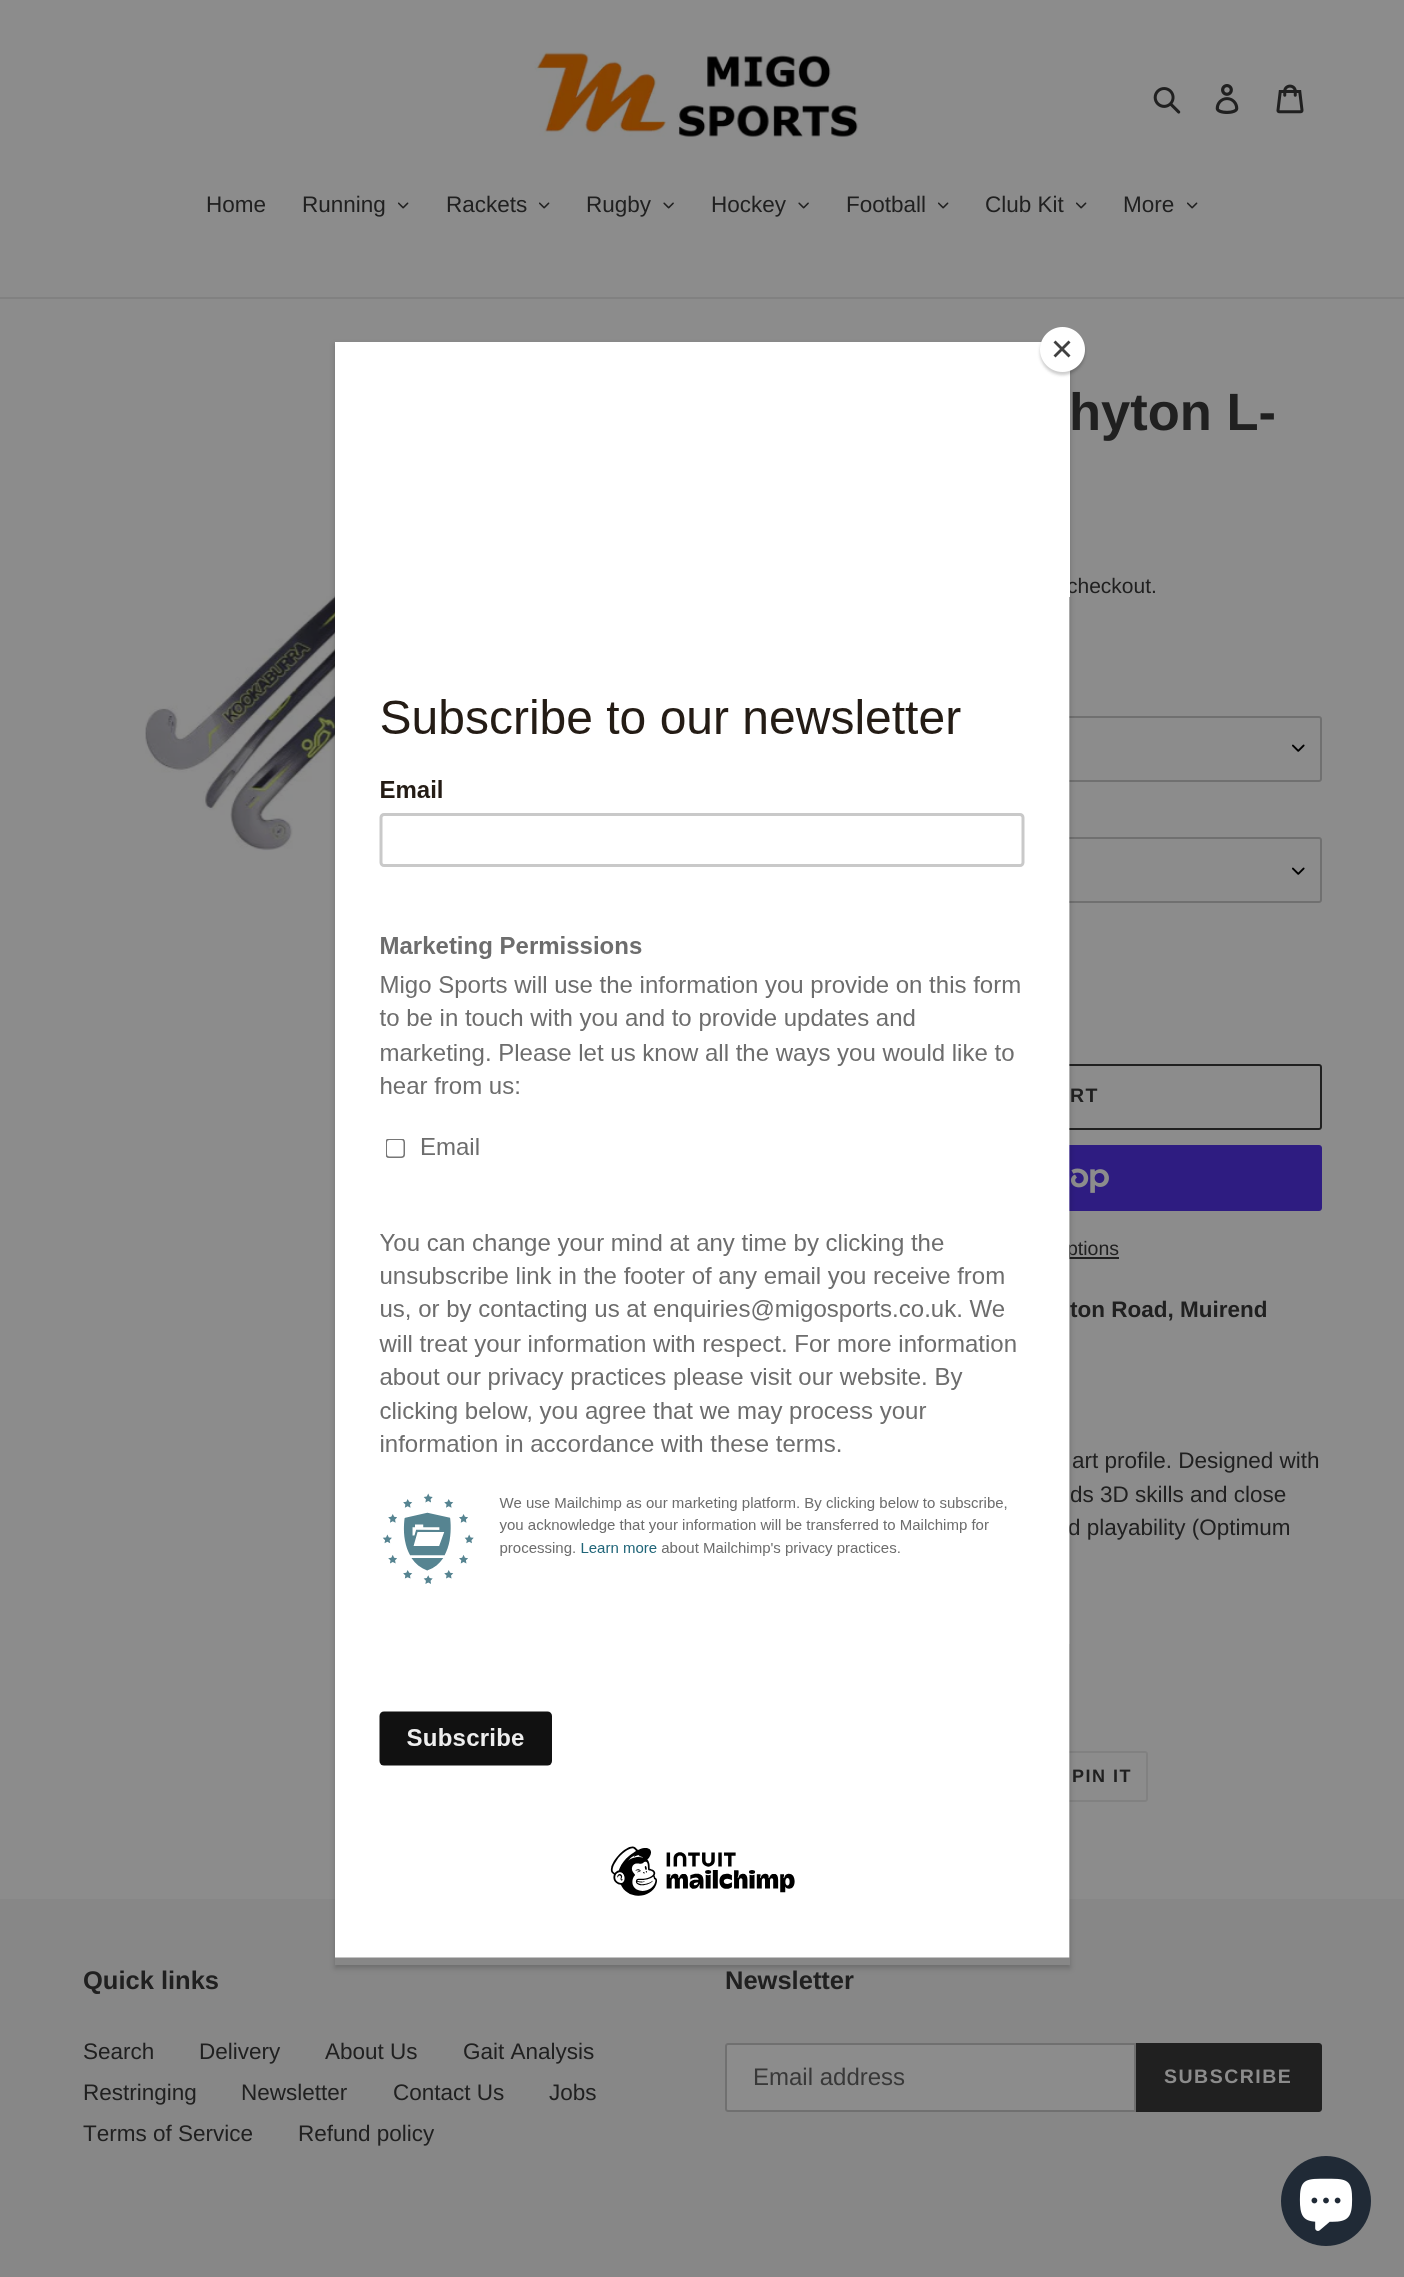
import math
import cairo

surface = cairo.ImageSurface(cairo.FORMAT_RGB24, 1404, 2277)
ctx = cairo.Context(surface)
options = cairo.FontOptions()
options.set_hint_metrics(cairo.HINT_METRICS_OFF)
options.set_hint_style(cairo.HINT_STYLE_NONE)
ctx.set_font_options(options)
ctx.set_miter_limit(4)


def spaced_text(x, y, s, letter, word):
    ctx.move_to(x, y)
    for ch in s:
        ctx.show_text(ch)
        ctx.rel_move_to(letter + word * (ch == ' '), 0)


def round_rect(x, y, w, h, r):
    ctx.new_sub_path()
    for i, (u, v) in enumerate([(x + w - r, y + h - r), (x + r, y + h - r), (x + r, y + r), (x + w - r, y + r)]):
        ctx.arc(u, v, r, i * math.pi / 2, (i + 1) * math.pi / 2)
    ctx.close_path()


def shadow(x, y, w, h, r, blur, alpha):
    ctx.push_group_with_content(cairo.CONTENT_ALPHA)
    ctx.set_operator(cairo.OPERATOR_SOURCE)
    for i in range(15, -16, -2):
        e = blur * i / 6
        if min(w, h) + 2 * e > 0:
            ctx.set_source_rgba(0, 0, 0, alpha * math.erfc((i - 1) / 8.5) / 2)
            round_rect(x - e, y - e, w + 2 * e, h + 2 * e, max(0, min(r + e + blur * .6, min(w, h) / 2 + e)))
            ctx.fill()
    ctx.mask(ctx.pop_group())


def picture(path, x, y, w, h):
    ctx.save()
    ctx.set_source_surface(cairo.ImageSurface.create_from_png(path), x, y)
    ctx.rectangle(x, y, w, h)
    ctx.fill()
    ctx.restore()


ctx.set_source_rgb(0.549, 0.549, 0.549)
ctx.paint()
picture("img1.png", 534, 52, 326, 85)
picture("img2.png", 1153, 87, 28, 27)
picture("img3.png", 1215, 84, 24, 30)
picture("img4.png", 1276, 84, 28, 30)
ctx.set_source_rgb(0.506, 0.506, 0.506)
ctx.rectangle(0, 297, 1404, 2)
ctx.fill()
ctx.select_font_face("Liberation Sans")
ctx.set_font_size(22.5)
ctx.set_source_rgb(0.125, 0.125, 0.125)
ctx.move_to(206, 212)
ctx.show_text("Home")
ctx.move_to(302, 212)
ctx.show_text("Running")
picture("img5.png", 398, 202, 11, 7)
ctx.move_to(446, 212)
ctx.show_text("Rackets")
picture("img5.png", 539, 202, 11, 7)
ctx.move_to(586, 212)
ctx.show_text("Rugby")
picture("img6.png", 663, 202, 11, 7)
ctx.move_to(711, 212)
ctx.show_text("Hockey")
picture("img6.png", 798, 202, 11, 7)
ctx.move_to(846, 212)
ctx.show_text("Football")
picture("img5.png", 938, 202, 11, 7)
ctx.move_to(985, 212)
ctx.show_text("Club Kit")
picture("img5.png", 1076, 202, 11, 7)
ctx.move_to(1123, 212)
ctx.show_text("More")
picture("img5.png", 1187, 202, 11, 7)
picture("img8.png", 145, 387, 190, 464)
picture("img9.png", 1292, 744, 13, 8)
round_rect(726, 717, 595, 64, 2)
ctx.set_source_rgb(0.439, 0.439, 0.439)
ctx.stroke()
picture("img9.png", 1292, 867, 13, 8)
round_rect(726, 838, 595, 64, 2)
ctx.stroke()
round_rect(726, 1065, 595, 64, 2)
ctx.set_source_rgb(0.125, 0.125, 0.125)
ctx.stroke()
ctx.set_source_rgb(0.18, 0.11, 0.506)
round_rect(725, 1145, 597, 66, 3)
ctx.fill()
picture("img10.png", 1069, 1168, 40, 25)
ctx.set_source_rgb(0.125, 0.125, 0.125)
ctx.rectangle(1069, 1257, 50, 2)
ctx.fill()
round_rect(1020, 1752, 127, 49, 2)
ctx.set_source_rgb(0.506, 0.506, 0.506)
ctx.stroke()
ctx.set_source_rgb(0.529, 0.529, 0.529)
ctx.rectangle(0, 1899, 1404, 378)
ctx.fill()
ctx.save()
ctx.set_fill_rule(cairo.FILL_RULE_EVEN_ODD)
ctx.new_path()
ctx.move_to(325, 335)
ctx.line_to(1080, 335)
ctx.line_to(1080, 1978)
ctx.line_to(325, 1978)
ctx.close_path()
ctx.move_to(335, 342)
ctx.line_to(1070, 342)
ctx.line_to(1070, 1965)
ctx.line_to(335, 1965)
ctx.close_path()
ctx.clip()
ctx.set_source_rgb(0, 0, 0)
shadow(335, 345, 735, 1623, 0, 3, 0.2)
ctx.restore()
ctx.set_font_size(21)
ctx.set_source_rgb(0.125, 0.125, 0.125)
ctx.move_to(1067, 593)
ctx.show_text("checkout.")
ctx.set_font_size(19.5)
ctx.move_to(1067, 1255)
ctx.show_text("ptions")
ctx.set_font_size(22.5)
ctx.move_to(1068, 1535)
ctx.show_text("d playability (Optimum")
picture("img7.png", 335, 342, 735, 1616)
ctx.set_source_rgb(0, 0, 0)
shadow(1040, 330, 45, 45, 22.5, 1.5, 0.2)
ctx.set_source_rgb(1, 1, 1)
ctx.arc(1062.5, 349.5, 22.5, 0, 2 * math.pi)
ctx.fill()
ctx.set_source_rgb(0.255, 0.255, 0.255)
ctx.new_path()
ctx.move_to(1068.5, 340.5)
ctx.line_to(1070.5, 342.5)
ctx.line_to(1055.5, 357.5)
ctx.line_to(1053.5, 355.5)
ctx.close_path()
ctx.fill()
ctx.new_path()
ctx.move_to(1053.5, 342.5)
ctx.line_to(1055.5, 340.5)
ctx.line_to(1070.5, 355.5)
ctx.line_to(1068.5, 357.5)
ctx.close_path()
ctx.fill()
ctx.select_font_face("Liberation Sans", cairo.FONT_SLANT_NORMAL, cairo.FONT_WEIGHT_BOLD)
ctx.set_font_size(52.5)
ctx.set_source_rgb(0.125, 0.125, 0.125)
ctx.move_to(1069, 430)
ctx.show_text("hyton L-")
ctx.set_font_size(19.5)
spaced_text(1070, 1102, "RT", 1.5, 0)
ctx.set_font_size(22.5)
ctx.move_to(1070, 1317)
ctx.show_text("ton Road, Muirend")
ctx.select_font_face("Liberation Sans")
ctx.move_to(1072, 1468)
ctx.show_text("art profile. Designed with")
ctx.move_to(1070, 1502)
ctx.show_text("ds 3D skills and close")
ctx.select_font_face("Liberation Sans", cairo.FONT_SLANT_NORMAL, cairo.FONT_WEIGHT_BOLD)
ctx.set_font_size(18)
spaced_text(1072, 1782, "PIN IT", 1.5, 0)
ctx.set_font_size(25.5)
ctx.move_to(83, 1989)
ctx.show_text("Quick links")
ctx.select_font_face("Liberation Sans")
ctx.set_font_size(22.5)
ctx.move_to(83, 2059)
ctx.show_text("Search")
ctx.move_to(199, 2059)
ctx.show_text("Delivery")
ctx.move_to(325, 2059)
ctx.show_text("About Us")
ctx.move_to(463, 2059)
ctx.show_text("Gait Analysis")
ctx.move_to(83, 2100)
ctx.show_text("Restringing")
ctx.move_to(241, 2100)
ctx.show_text("Newsletter")
ctx.move_to(393, 2100)
ctx.show_text("Contact Us")
ctx.move_to(549, 2100)
ctx.show_text("Jobs")
ctx.move_to(83, 2141)
ctx.show_text("Terms of Service")
ctx.move_to(298, 2141)
ctx.show_text("Refund policy")
ctx.select_font_face("Liberation Sans", cairo.FONT_SLANT_NORMAL, cairo.FONT_WEIGHT_BOLD)
ctx.set_font_size(25.5)
ctx.move_to(725, 1989)
ctx.show_text("Newsletter")
ctx.set_source_rgb(0.549, 0.549, 0.549)
ctx.new_path()
ctx.move_to(728, 2044)
ctx.line_to(1135, 2044)
ctx.line_to(1135, 2111)
ctx.line_to(728, 2111)
ctx.curve_to(727, 2111, 726, 2110, 726, 2109)
ctx.line_to(726, 2046)
ctx.curve_to(726, 2045, 727, 2044, 728, 2044)
ctx.close_path()
ctx.fill_preserve()
ctx.set_source_rgb(0.439, 0.439, 0.439)
ctx.stroke()
ctx.select_font_face("Liberation Sans")
ctx.set_font_size(24)
ctx.set_source_rgb(0.22, 0.22, 0.22)
ctx.move_to(753, 2085)
ctx.show_text("Email address")
ctx.set_source_rgb(0.125, 0.125, 0.125)
ctx.new_path()
ctx.move_to(1136, 2043)
ctx.line_to(1319, 2043)
ctx.curve_to(1320.5, 2043, 1322, 2044.5, 1322, 2046)
ctx.line_to(1322, 2109)
ctx.curve_to(1322, 2110.5, 1320.5, 2112, 1319, 2112)
ctx.line_to(1136, 2112)
ctx.close_path()
ctx.fill()
ctx.select_font_face("Liberation Sans", cairo.FONT_SLANT_NORMAL, cairo.FONT_WEIGHT_BOLD)
ctx.set_font_size(19.5)
ctx.set_source_rgb(0.549, 0.549, 0.549)
spaced_text(1164, 2083, "SUBSCRIBE", 1.5, 0)
ctx.set_source_rgb(0.125, 0.165, 0.212)
ctx.new_path()
ctx.arc(1326, 2201, 45, 0, 2 * math.pi)
ctx.fill()
picture("img11.png", 1299, 2178, 54, 53)
surface.write_to_png("page.png")
